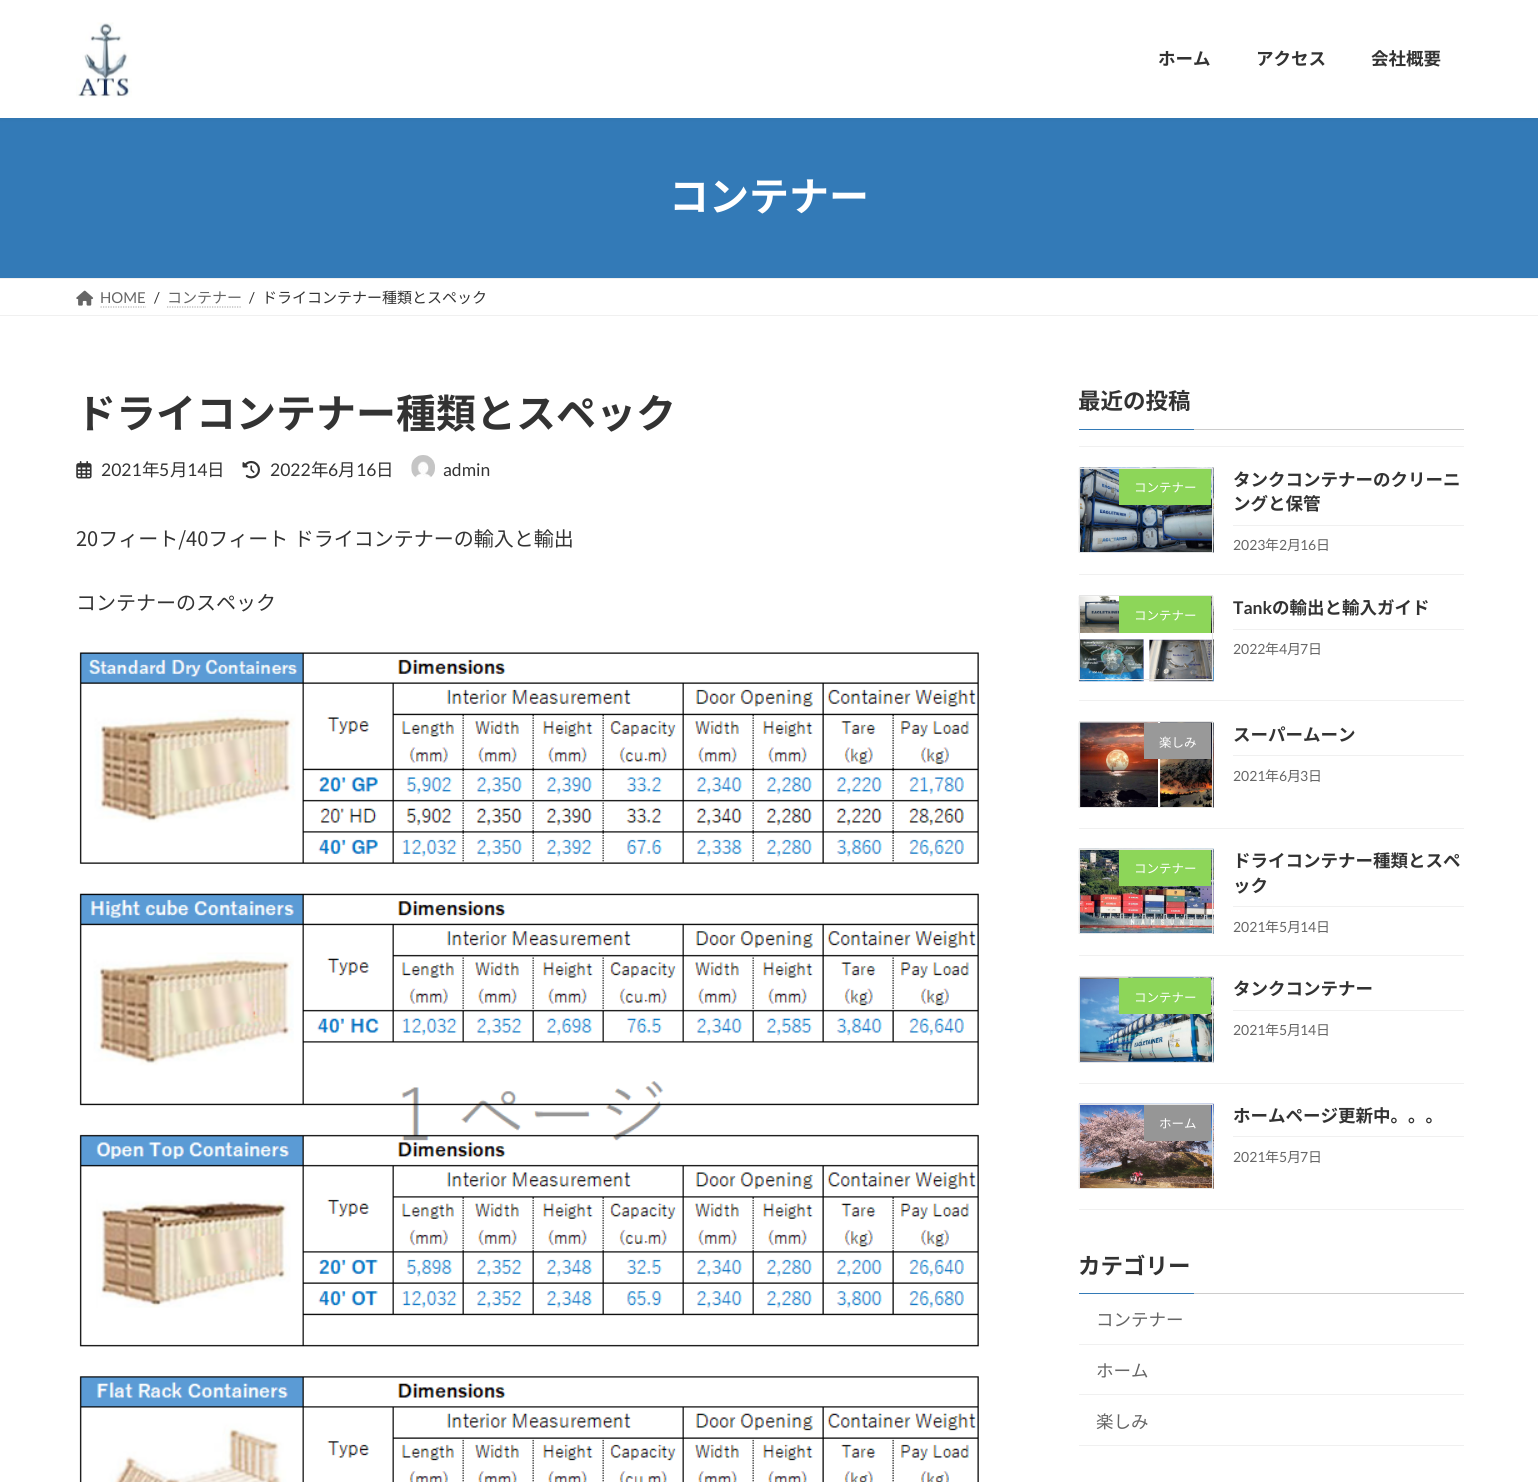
import math
import cairo

surface = cairo.ImageSurface(cairo.FORMAT_RGB24, 1538, 1482)
ctx = cairo.Context(surface)
options = cairo.FontOptions()
options.set_hint_metrics(cairo.HINT_METRICS_OFF)
options.set_hint_style(cairo.HINT_STYLE_NONE)
ctx.set_font_options(options)
ctx.set_miter_limit(4)


def spaced_text(x, y, s, letter, word):
    ctx.move_to(x, y)
    for ch in s:
        ctx.show_text(ch)
        ctx.rel_move_to(letter + word * (ch == ' '), 0)


def round_rect(x, y, w, h, r):
    ctx.new_sub_path()
    for i, (u, v) in enumerate([(x + w - r, y + h - r), (x + r, y + h - r), (x + r, y + r), (x + w - r, y + r)]):
        ctx.arc(u, v, r, i * math.pi / 2, (i + 1) * math.pi / 2)
    ctx.close_path()


def shadow(x, y, w, h, r, blur, alpha):
    ctx.push_group_with_content(cairo.CONTENT_ALPHA)
    ctx.set_operator(cairo.OPERATOR_SOURCE)
    for i in range(15, -16, -2):
        e = blur * i / 6
        if min(w, h) + 2 * e > 0:
            ctx.set_source_rgba(0, 0, 0, alpha * math.erfc((i - 1) / 8.5) / 2)
            round_rect(x - e, y - e, w + 2 * e, h + 2 * e, max(0, min(r + e + blur * .6, min(w, h) / 2 + e)))
            ctx.fill()
    ctx.mask(ctx.pop_group())


def picture(path, x, y, w, h):
    ctx.save()
    ctx.set_source_surface(cairo.ImageSurface.create_from_png(path), x, y)
    ctx.rectangle(x, y, w, h)
    ctx.fill()
    ctx.restore()


ctx.set_source_rgb(1, 1, 1)
ctx.paint()
ctx.set_source_rgb(0.2, 0.478, 0.718)
ctx.rectangle(0, 118, 1538, 160)
ctx.fill()
ctx.set_source_rgb(0, 0, 0)
shadow(0, 1, 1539, 118, 0, 2, 0.05)
ctx.set_source_rgb(1, 1, 1)
ctx.rectangle(0, 0, 1538, 118)
ctx.fill()
picture("img1.png", 76, 22, 56, 76)
ctx.select_font_face("Noto Sans JP", cairo.FONT_SLANT_NORMAL, cairo.FONT_WEIGHT_BOLD)
ctx.set_font_size(17.5)
ctx.set_source_rgb(0.2, 0.2, 0.2)
ctx.move_to(1158, 65)
ctx.show_text("ホーム")
ctx.move_to(1256, 65)
ctx.show_text("アクセス")
ctx.move_to(1371, 65)
ctx.show_text("会社概要")
ctx.set_font_size(40)
ctx.set_source_rgb(1, 1, 1)
ctx.move_to(669, 211)
ctx.show_text("コンテナー")
ctx.set_source_rgb(0.941, 0.941, 0.941)
ctx.rectangle(0, 278, 1538, 1)
ctx.fill()
ctx.rectangle(0, 315, 1538, 1)
ctx.fill()
picture("img2.png", 76, 290, 18, 16)
ctx.select_font_face("Lato")
ctx.set_font_size(15)
ctx.set_source_rgb(0.4, 0.4, 0.4)
ctx.move_to(100, 303)
ctx.show_text("HOME")
ctx.new_path()
ctx.move_to(100.5, 307)
ctx.line_to(146, 307)
ctx.set_source_rgb(0.702, 0.702, 0.702)
ctx.set_line_width(1.2)
ctx.set_dash([1.25, 1.25])
ctx.stroke()
ctx.set_source_rgb(0.2, 0.2, 0.2)
ctx.move_to(154, 303)
ctx.show_text("/")
ctx.select_font_face("Noto Sans JP")
ctx.set_source_rgb(0.4, 0.4, 0.4)
ctx.move_to(167, 303)
ctx.show_text("コンテナー")
ctx.new_path()
ctx.move_to(167, 307)
ctx.line_to(242, 307)
ctx.set_source_rgb(0.702, 0.702, 0.702)
ctx.stroke()
ctx.select_font_face("Lato")
ctx.set_source_rgb(0.2, 0.2, 0.2)
ctx.move_to(249, 303)
ctx.show_text("/")
ctx.select_font_face("Noto Sans JP")
ctx.move_to(262, 303)
ctx.show_text("ドライコンテナー種類とスペック")
ctx.select_font_face("Noto Sans JP", cairo.FONT_SLANT_NORMAL, cairo.FONT_WEIGHT_BOLD)
ctx.set_font_size(40)
ctx.move_to(76, 428)
ctx.show_text("ドライコンテナー種類とスペック")
picture("img3.png", 76, 461, 16, 18)
ctx.select_font_face("Lato")
ctx.set_font_size(17.5)
ctx.move_to(101, 476)
ctx.show_text("2021")
ctx.select_font_face("Noto Sans JP")
ctx.move_to(142, 476)
ctx.show_text("年")
ctx.select_font_face("Lato")
ctx.move_to(159, 476)
ctx.show_text("5")
ctx.select_font_face("Noto Sans JP")
ctx.move_to(170, 476)
ctx.show_text("月")
ctx.select_font_face("Lato")
ctx.move_to(187, 476)
ctx.show_text("14")
ctx.select_font_face("Noto Sans JP")
ctx.move_to(207, 476)
ctx.show_text("日")
picture("img4.png", 242, 460, 18, 19)
ctx.select_font_face("Lato")
ctx.move_to(270, 476)
ctx.show_text("2022")
ctx.select_font_face("Noto Sans JP")
ctx.move_to(311, 476)
ctx.show_text("年")
ctx.select_font_face("Lato")
ctx.move_to(328, 476)
ctx.show_text("6")
ctx.select_font_face("Noto Sans JP")
ctx.move_to(338, 476)
ctx.show_text("月")
ctx.select_font_face("Lato")
ctx.move_to(356, 476)
ctx.show_text("16")
ctx.select_font_face("Noto Sans JP")
ctx.move_to(376, 476)
ctx.show_text("日")
picture("img5.png", 411, 455, 24, 23)
ctx.select_font_face("Lato")
ctx.move_to(443, 476)
ctx.show_text("admin")
ctx.select_font_face("Noto Sans JP")
ctx.set_font_size(20)
spaced_text(76, 546, "20フィート/40フィート ドライコンテナーの輸入と輸出", 0, 1)
ctx.move_to(76, 610)
ctx.show_text("コンテナーのスペック")
picture("img6.png", 79, 652, 900, 830)
ctx.set_source_rgb(0.8, 0.8, 0.8)
ctx.rectangle(1194, 429, 270, 1)
ctx.fill()
ctx.select_font_face("Noto Sans JP", cairo.FONT_SLANT_NORMAL, cairo.FONT_WEIGHT_BOLD)
ctx.set_font_size(22.5)
ctx.set_source_rgb(0.2, 0.2, 0.2)
ctx.move_to(1078, 409)
ctx.show_text("最近の投稿")
ctx.set_source_rgb(0.2, 0.478, 0.718)
ctx.rectangle(1079, 429, 115, 1)
ctx.fill()
ctx.set_source_rgb(0.941, 0.941, 0.941)
ctx.rectangle(1079, 446, 385, 1)
ctx.fill()
ctx.rectangle(1079, 574, 385, 1)
ctx.fill()
picture("img7.png", 1078, 467, 136, 86)
ctx.rectangle(1079.5, 468.5, 133, 84)
ctx.set_source_rgb(0.898, 0.898, 0.898)
ctx.set_line_width(1)
ctx.set_dash([])
ctx.stroke()
ctx.set_source_rgb(0.553, 0.839, 0.349)
ctx.rectangle(1119, 469, 92, 36)
ctx.fill()
ctx.select_font_face("Noto Sans JP")
ctx.set_font_size(12.5)
ctx.set_source_rgb(1, 1, 1)
ctx.move_to(1134, 492)
ctx.show_text("コンテナー")
ctx.set_source_rgb(0.941, 0.941, 0.941)
ctx.rectangle(1233, 525, 231, 1)
ctx.fill()
ctx.select_font_face("Noto Sans JP", cairo.FONT_SLANT_NORMAL, cairo.FONT_WEIGHT_BOLD)
ctx.set_font_size(17.5)
ctx.set_source_rgb(0.2, 0.2, 0.2)
ctx.move_to(1233, 486)
ctx.show_text("タンクコンテナーのクリーニ")
ctx.move_to(1233, 510)
ctx.show_text("ングと保管")
ctx.select_font_face("Lato")
ctx.set_font_size(14)
ctx.set_source_rgb(0.4, 0.4, 0.4)
ctx.move_to(1233, 550)
ctx.show_text("2023")
ctx.select_font_face("Noto Sans JP")
ctx.move_to(1265, 550)
ctx.show_text("年")
ctx.select_font_face("Lato")
ctx.move_to(1279, 550)
ctx.show_text("2")
ctx.select_font_face("Noto Sans JP")
ctx.move_to(1287, 550)
ctx.show_text("月")
ctx.select_font_face("Lato")
ctx.move_to(1300, 550)
ctx.show_text("16")
ctx.select_font_face("Noto Sans JP")
ctx.move_to(1316, 550)
ctx.show_text("日")
ctx.set_source_rgb(0.941, 0.941, 0.941)
ctx.rectangle(1079, 700, 385, 1)
ctx.fill()
picture("img8.png", 1078, 596, 136, 86)
ctx.rectangle(1079.5, 595.5, 133, 84)
ctx.set_source_rgb(0.898, 0.898, 0.898)
ctx.stroke()
ctx.set_source_rgb(0.553, 0.839, 0.349)
ctx.rectangle(1119, 596, 92, 37)
ctx.fill()
ctx.set_font_size(12.5)
ctx.set_source_rgb(1, 1, 1)
ctx.move_to(1134, 620)
ctx.show_text("コンテナー")
ctx.set_source_rgb(0.941, 0.941, 0.941)
ctx.rectangle(1233, 629, 231, 1)
ctx.fill()
ctx.select_font_face("Lato", cairo.FONT_SLANT_NORMAL, cairo.FONT_WEIGHT_BOLD)
ctx.set_font_size(17.5)
ctx.set_source_rgb(0.2, 0.2, 0.2)
ctx.move_to(1233, 614)
ctx.show_text("Tank")
ctx.select_font_face("Noto Sans JP", cairo.FONT_SLANT_NORMAL, cairo.FONT_WEIGHT_BOLD)
ctx.move_to(1272, 614)
ctx.show_text("の輸出と輸入ガイド")
ctx.select_font_face("Lato")
ctx.set_font_size(14)
ctx.set_source_rgb(0.4, 0.4, 0.4)
ctx.move_to(1233, 654)
ctx.show_text("2022")
ctx.select_font_face("Noto Sans JP")
ctx.move_to(1265, 654)
ctx.show_text("年")
ctx.select_font_face("Lato")
ctx.move_to(1279, 654)
ctx.show_text("4")
ctx.select_font_face("Noto Sans JP")
ctx.move_to(1287, 654)
ctx.show_text("月")
ctx.select_font_face("Lato")
ctx.move_to(1300, 654)
ctx.show_text("7")
ctx.select_font_face("Noto Sans JP")
ctx.move_to(1308, 654)
ctx.show_text("日")
ctx.set_source_rgb(0.941, 0.941, 0.941)
ctx.rectangle(1079, 828, 385, 1)
ctx.fill()
picture("img9.png", 1078, 722, 136, 86)
ctx.rectangle(1079.5, 721.5, 133, 86)
ctx.set_source_rgb(0.898, 0.898, 0.898)
ctx.stroke()
ctx.set_source_rgb(0.6, 0.6, 0.6)
ctx.rectangle(1144, 723, 67, 36)
ctx.fill()
ctx.set_font_size(12.5)
ctx.set_source_rgb(1, 1, 1)
ctx.move_to(1159, 747)
ctx.show_text("楽しみ")
ctx.set_source_rgb(0.941, 0.941, 0.941)
ctx.rectangle(1233, 755, 231, 1)
ctx.fill()
ctx.select_font_face("Noto Sans JP", cairo.FONT_SLANT_NORMAL, cairo.FONT_WEIGHT_BOLD)
ctx.set_font_size(17.5)
ctx.set_source_rgb(0.2, 0.2, 0.2)
ctx.move_to(1233, 741)
ctx.show_text("スーパームーン")
ctx.select_font_face("Lato")
ctx.set_font_size(14)
ctx.set_source_rgb(0.4, 0.4, 0.4)
ctx.move_to(1233, 781)
ctx.show_text("2021")
ctx.select_font_face("Noto Sans JP")
ctx.move_to(1265, 781)
ctx.show_text("年")
ctx.select_font_face("Lato")
ctx.move_to(1279, 781)
ctx.show_text("6")
ctx.select_font_face("Noto Sans JP")
ctx.move_to(1287, 781)
ctx.show_text("月")
ctx.select_font_face("Lato")
ctx.move_to(1300, 781)
ctx.show_text("3")
ctx.select_font_face("Noto Sans JP")
ctx.move_to(1308, 781)
ctx.show_text("日")
ctx.set_source_rgb(0.941, 0.941, 0.941)
ctx.rectangle(1079, 955, 385, 1)
ctx.fill()
picture("img10.png", 1078, 848, 136, 86)
ctx.rectangle(1079.5, 849.5, 133, 84)
ctx.set_source_rgb(0.898, 0.898, 0.898)
ctx.stroke()
ctx.set_source_rgb(0.553, 0.839, 0.349)
ctx.rectangle(1119, 850, 92, 36)
ctx.fill()
ctx.set_font_size(12.5)
ctx.set_source_rgb(1, 1, 1)
ctx.move_to(1134, 873)
ctx.show_text("コンテナー")
ctx.set_source_rgb(0.941, 0.941, 0.941)
ctx.rectangle(1233, 906, 231, 1)
ctx.fill()
ctx.select_font_face("Noto Sans JP", cairo.FONT_SLANT_NORMAL, cairo.FONT_WEIGHT_BOLD)
ctx.set_font_size(17.5)
ctx.set_source_rgb(0.2, 0.2, 0.2)
ctx.move_to(1233, 867)
ctx.show_text("ドライコンテナー種類とスペ")
ctx.move_to(1233, 892)
ctx.show_text("ック")
ctx.select_font_face("Lato")
ctx.set_font_size(14)
ctx.set_source_rgb(0.4, 0.4, 0.4)
ctx.move_to(1233, 932)
ctx.show_text("2021")
ctx.select_font_face("Noto Sans JP")
ctx.move_to(1265, 932)
ctx.show_text("年")
ctx.select_font_face("Lato")
ctx.move_to(1279, 932)
ctx.show_text("5")
ctx.select_font_face("Noto Sans JP")
ctx.move_to(1287, 932)
ctx.show_text("月")
ctx.select_font_face("Lato")
ctx.move_to(1300, 932)
ctx.show_text("14")
ctx.select_font_face("Noto Sans JP")
ctx.move_to(1316, 932)
ctx.show_text("日")
ctx.set_source_rgb(0.941, 0.941, 0.941)
ctx.rectangle(1079, 1083, 385, 1)
ctx.fill()
picture("img11.png", 1078, 977, 136, 86)
ctx.rectangle(1079.5, 976.5, 133, 86)
ctx.set_source_rgb(0.898, 0.898, 0.898)
ctx.stroke()
ctx.set_source_rgb(0.553, 0.839, 0.349)
ctx.rectangle(1119, 978, 92, 36)
ctx.fill()
ctx.set_font_size(12.5)
ctx.set_source_rgb(1, 1, 1)
ctx.move_to(1134, 1002)
ctx.show_text("コンテナー")
ctx.set_source_rgb(0.941, 0.941, 0.941)
ctx.rectangle(1233, 1010, 231, 1)
ctx.fill()
ctx.select_font_face("Noto Sans JP", cairo.FONT_SLANT_NORMAL, cairo.FONT_WEIGHT_BOLD)
ctx.set_font_size(17.5)
ctx.set_source_rgb(0.2, 0.2, 0.2)
ctx.move_to(1233, 995)
ctx.show_text("タンクコンテナー")
ctx.select_font_face("Lato")
ctx.set_font_size(14)
ctx.set_source_rgb(0.4, 0.4, 0.4)
ctx.move_to(1233, 1035)
ctx.show_text("2021")
ctx.select_font_face("Noto Sans JP")
ctx.move_to(1265, 1035)
ctx.show_text("年")
ctx.select_font_face("Lato")
ctx.move_to(1279, 1035)
ctx.show_text("5")
ctx.select_font_face("Noto Sans JP")
ctx.move_to(1287, 1035)
ctx.show_text("月")
ctx.select_font_face("Lato")
ctx.move_to(1300, 1035)
ctx.show_text("14")
ctx.select_font_face("Noto Sans JP")
ctx.move_to(1316, 1035)
ctx.show_text("日")
ctx.set_source_rgb(0.941, 0.941, 0.941)
ctx.rectangle(1079, 1209, 385, 1)
ctx.fill()
picture("img12.png", 1078, 1103, 136, 86)
ctx.rectangle(1079.5, 1104.5, 133, 84)
ctx.set_source_rgb(0.898, 0.898, 0.898)
ctx.stroke()
ctx.set_source_rgb(0.588, 0.588, 0.588)
ctx.rectangle(1144, 1105, 67, 36)
ctx.fill()
ctx.set_font_size(12.5)
ctx.set_source_rgb(1, 1, 1)
ctx.move_to(1159, 1128)
ctx.show_text("ホーム")
ctx.set_source_rgb(0.941, 0.941, 0.941)
ctx.rectangle(1233, 1136, 231, 1)
ctx.fill()
ctx.select_font_face("Noto Sans JP", cairo.FONT_SLANT_NORMAL, cairo.FONT_WEIGHT_BOLD)
ctx.set_font_size(17.5)
ctx.set_source_rgb(0.2, 0.2, 0.2)
ctx.move_to(1233, 1122)
ctx.show_text("ホームページ更新中。。。")
ctx.select_font_face("Lato")
ctx.set_font_size(14)
ctx.set_source_rgb(0.4, 0.4, 0.4)
ctx.move_to(1233, 1162)
ctx.show_text("2021")
ctx.select_font_face("Noto Sans JP")
ctx.move_to(1265, 1162)
ctx.show_text("年")
ctx.select_font_face("Lato")
ctx.move_to(1279, 1162)
ctx.show_text("5")
ctx.select_font_face("Noto Sans JP")
ctx.move_to(1287, 1162)
ctx.show_text("月")
ctx.select_font_face("Lato")
ctx.move_to(1300, 1162)
ctx.show_text("7")
ctx.select_font_face("Noto Sans JP")
ctx.move_to(1308, 1162)
ctx.show_text("日")
ctx.set_source_rgb(0.8, 0.8, 0.8)
ctx.rectangle(1194, 1293, 270, 1)
ctx.fill()
ctx.select_font_face("Noto Sans JP", cairo.FONT_SLANT_NORMAL, cairo.FONT_WEIGHT_BOLD)
ctx.set_font_size(22.5)
ctx.set_source_rgb(0.2, 0.2, 0.2)
ctx.move_to(1078, 1274)
ctx.show_text("カテゴリー")
ctx.set_source_rgb(0.2, 0.478, 0.718)
ctx.rectangle(1079, 1293, 115, 1)
ctx.fill()
ctx.set_source_rgb(0.941, 0.941, 0.941)
ctx.rectangle(1079, 1344, 385, 1)
ctx.fill()
ctx.select_font_face("Noto Sans JP")
ctx.set_font_size(17.5)
ctx.set_source_rgb(0.4, 0.4, 0.4)
ctx.move_to(1096, 1326)
ctx.show_text("コンテナー")
ctx.set_source_rgb(0.941, 0.941, 0.941)
ctx.rectangle(1079, 1394, 385, 1)
ctx.fill()
ctx.set_source_rgb(0.4, 0.4, 0.4)
ctx.move_to(1096, 1377)
ctx.show_text("ホーム")
ctx.set_source_rgb(0.941, 0.941, 0.941)
ctx.rectangle(1079, 1445, 385, 1)
ctx.fill()
ctx.set_source_rgb(0.4, 0.4, 0.4)
ctx.move_to(1096, 1428)
ctx.show_text("楽しみ")
surface.write_to_png("page.png")
